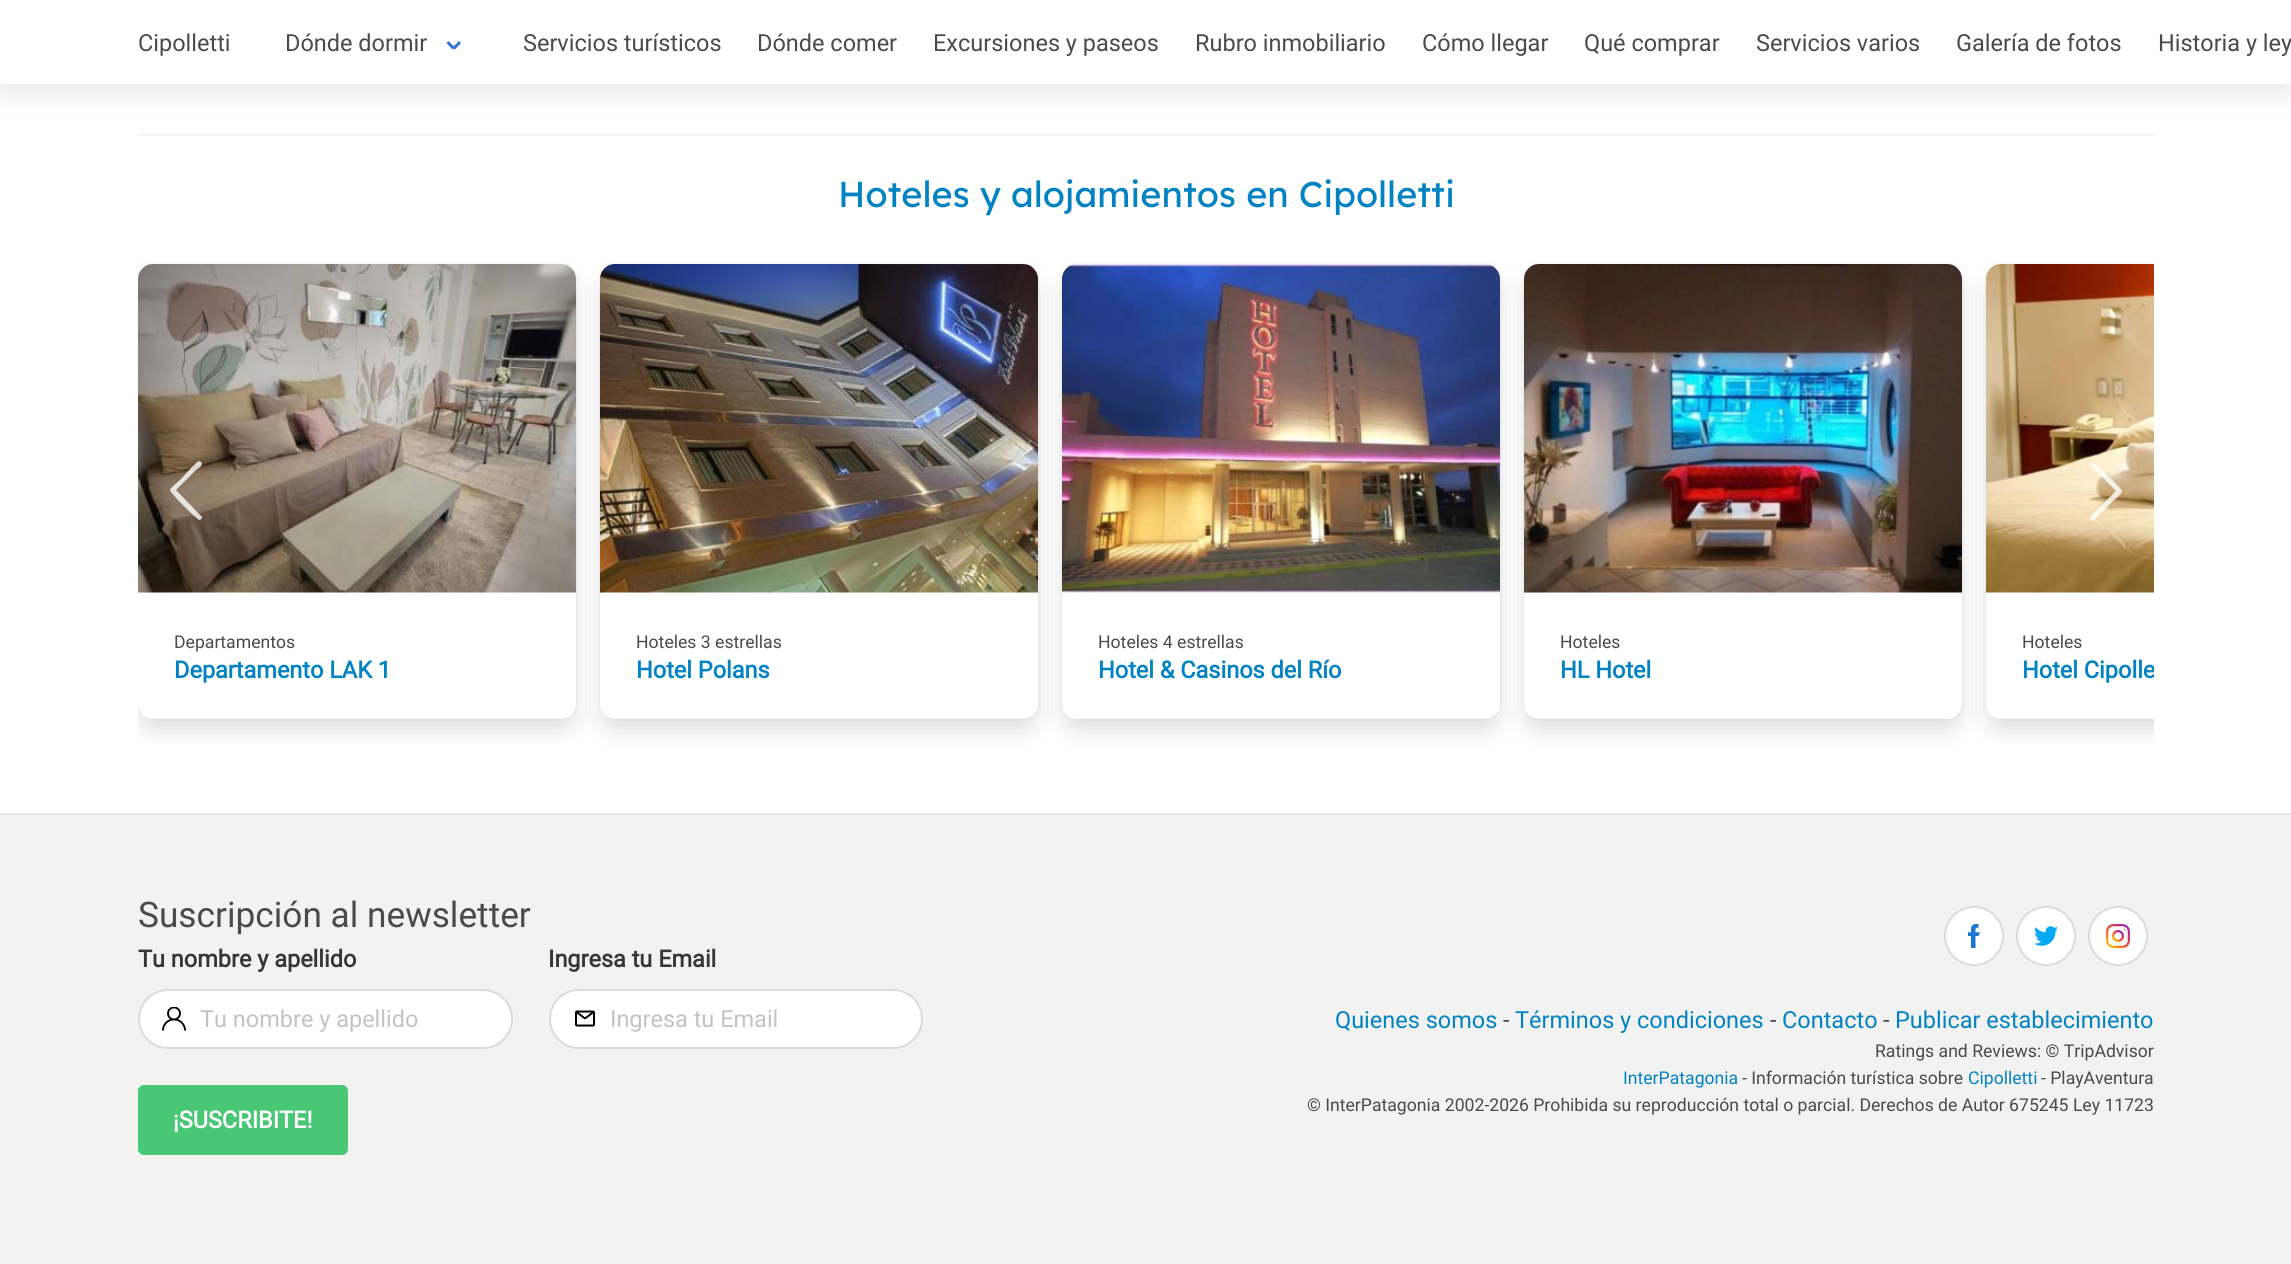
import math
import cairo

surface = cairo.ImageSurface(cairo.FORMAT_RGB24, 2291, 1264)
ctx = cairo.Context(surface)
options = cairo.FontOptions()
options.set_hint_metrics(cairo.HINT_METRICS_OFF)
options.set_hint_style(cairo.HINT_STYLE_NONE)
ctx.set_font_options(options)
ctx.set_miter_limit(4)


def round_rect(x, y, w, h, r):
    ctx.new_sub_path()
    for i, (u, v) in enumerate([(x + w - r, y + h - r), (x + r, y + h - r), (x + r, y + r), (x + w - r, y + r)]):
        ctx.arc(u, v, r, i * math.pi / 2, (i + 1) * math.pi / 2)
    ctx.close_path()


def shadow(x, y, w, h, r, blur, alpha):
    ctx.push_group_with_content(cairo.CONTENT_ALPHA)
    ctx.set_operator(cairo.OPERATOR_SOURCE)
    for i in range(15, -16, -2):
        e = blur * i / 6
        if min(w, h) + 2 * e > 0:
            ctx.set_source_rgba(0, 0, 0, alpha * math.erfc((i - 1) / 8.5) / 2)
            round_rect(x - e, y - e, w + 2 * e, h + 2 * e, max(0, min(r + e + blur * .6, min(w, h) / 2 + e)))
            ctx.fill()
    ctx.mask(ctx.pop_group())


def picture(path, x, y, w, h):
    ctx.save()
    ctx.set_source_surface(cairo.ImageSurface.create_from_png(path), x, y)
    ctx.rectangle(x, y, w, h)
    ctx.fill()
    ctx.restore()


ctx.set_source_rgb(1, 1, 1)
ctx.paint()
ctx.set_source_rgb(0.039, 0.039, 0.039)
shadow(3, 15, 2286, 78, 0, 12, 0.1)
ctx.set_source_rgb(1, 1, 1)
ctx.rectangle(0, 0, 2291, 84)
ctx.fill()
ctx.select_font_face("Roboto")
ctx.set_font_size(24)
ctx.set_source_rgb(0.29, 0.29, 0.29)
ctx.move_to(138, 51)
ctx.show_text("Cipolletti")
ctx.move_to(285, 51)
ctx.show_text("Dónde dormir")
ctx.set_source_rgb(0.196, 0.451, 0.863)
ctx.new_path()
ctx.move_to(452.5, 47.5)
ctx.line_to(459, 41)
ctx.line_to(461, 43)
ctx.line_to(455, 49.5)
ctx.close_path()
ctx.fill()
ctx.new_path()
ctx.move_to(446.5, 43)
ctx.line_to(448.5, 41)
ctx.line_to(455, 47.5)
ctx.line_to(452.5, 49.5)
ctx.close_path()
ctx.fill()
ctx.set_source_rgb(0.29, 0.29, 0.29)
ctx.move_to(523, 51)
ctx.show_text("Servicios turísticos")
ctx.move_to(757, 51)
ctx.show_text("Dónde comer")
ctx.move_to(933, 51)
ctx.show_text("Excursiones y paseos")
ctx.move_to(1195, 51)
ctx.show_text("Rubro inmobiliario")
ctx.move_to(1422, 51)
ctx.show_text("Cómo llegar")
ctx.move_to(1584, 51)
ctx.show_text("Qué comprar")
ctx.move_to(1756, 51)
ctx.show_text("Servicios varios")
ctx.move_to(1956, 51)
ctx.show_text("Galería de fotos")
ctx.move_to(2158, 51)
ctx.show_text("Historia y ley")
ctx.set_source_rgb(0.961, 0.961, 0.961)
ctx.rectangle(138, 134, 2016, 2)
ctx.fill()
ctx.select_font_face("Lexend Deca")
ctx.set_font_size(36)
ctx.set_source_rgb(0.004, 0.514, 0.765)
ctx.move_to(838, 207)
ctx.show_text("Hoteles y alojamientos en Cipolletti")
ctx.save()
ctx.rectangle(138, 240, 2016, 503)
ctx.clip()
round_rect(138, 264, 439, 455, 16)
ctx.set_source_rgb(0.976, 0.976, 0.976)
ctx.stroke()
ctx.restore()
ctx.save()
ctx.rectangle(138, 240, 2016, 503)
ctx.clip()
ctx.set_source_rgb(0.039, 0.039, 0.039)
shadow(141, 279, 432, 449, 12, 12, 0.15)
ctx.restore()
ctx.set_source_rgb(1, 1, 1)
round_rect(138, 264, 438, 455, 15)
ctx.fill()
picture("img1.png", 138, 264, 438, 329)
ctx.set_source_rgba(1, 1, 1, 0.8)
ctx.set_fill_rule(cairo.FILL_RULE_EVEN_ODD)
ctx.new_path()
ctx.move_to(201, 462)
ctx.curve_to(204, 465, 198, 469, 197, 469)
ctx.line_to(176, 490)
ctx.line_to(202, 517)
ctx.curve_to(202, 518, 201, 520, 199, 520)
ctx.line_to(193, 515)
ctx.curve_to(190, 512, 170, 493, 170, 490)
ctx.curve_to(170, 488, 178, 482, 180, 480)
ctx.line_to(193, 466)
ctx.curve_to(194, 466, 198, 459, 201, 462)
ctx.close_path()
ctx.fill()
round_rect(600, 264, 439, 455, 16)
ctx.set_source_rgb(0.976, 0.976, 0.976)
ctx.stroke()
ctx.set_source_rgb(0.039, 0.039, 0.039)
shadow(603, 279, 432, 449, 12, 12, 0.15)
round_rect(1062, 264, 439, 455, 16)
ctx.set_source_rgb(0.976, 0.976, 0.976)
ctx.stroke()
ctx.set_source_rgb(1, 1, 1)
round_rect(600, 264, 438, 455, 15)
ctx.fill()
picture("img2.png", 600, 264, 438, 329)
ctx.set_source_rgb(0.039, 0.039, 0.039)
shadow(1065, 279, 432, 449, 12, 12, 0.15)
ctx.set_source_rgb(1, 1, 1)
round_rect(1062, 264, 438, 455, 15)
ctx.fill()
picture("img3.png", 1062, 264, 438, 329)
round_rect(1524, 264, 439, 455, 16)
ctx.set_source_rgb(0.976, 0.976, 0.976)
ctx.stroke()
ctx.set_source_rgb(0.039, 0.039, 0.039)
shadow(1527, 279, 432, 449, 12, 12, 0.15)
ctx.save()
ctx.set_fill_rule(cairo.FILL_RULE_WINDING)
ctx.rectangle(138, 240, 2016, 503)
ctx.clip()
round_rect(1986, 264, 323, 455, 16)
ctx.set_source_rgb(0.976, 0.976, 0.976)
ctx.stroke()
ctx.restore()
ctx.set_source_rgb(1, 1, 1)
round_rect(1524, 264, 438, 455, 15)
ctx.fill()
picture("img4.png", 1524, 264, 438, 329)
ctx.save()
ctx.set_fill_rule(cairo.FILL_RULE_WINDING)
ctx.rectangle(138, 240, 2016, 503)
ctx.clip()
ctx.set_source_rgb(0.039, 0.039, 0.039)
shadow(1989, 279, 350, 449, 12, 12, 0.15)
ctx.restore()
ctx.new_path()
ctx.move_to(2001, 264)
ctx.line_to(2154, 264)
ctx.line_to(2154, 719)
ctx.line_to(2001, 719)
ctx.curve_to(1992.5, 719, 1986, 712.5, 1986, 704)
ctx.line_to(1986, 279)
ctx.curve_to(1986, 270.5, 1992.5, 264, 2001, 264)
ctx.close_path()
ctx.fill()
picture("img5.png", 1986, 264, 168, 329)
ctx.set_source_rgba(1, 1, 1, 0.8)
ctx.new_path()
ctx.move_to(2091, 520)
ctx.curve_to(2088, 517, 2094, 513, 2095, 512)
ctx.line_to(2116, 491)
ctx.line_to(2090, 465)
ctx.curve_to(2090, 463, 2091, 462, 2093, 462)
ctx.line_to(2099, 467)
ctx.curve_to(2102, 470, 2122, 489, 2122, 491)
ctx.curve_to(2122, 494, 2114, 500, 2112, 502)
ctx.line_to(2099, 515)
ctx.curve_to(2098, 516, 2094, 522, 2091, 520)
ctx.close_path()
ctx.fill()
ctx.select_font_face("Roboto")
ctx.set_font_size(18)
ctx.set_source_rgb(0.29, 0.29, 0.29)
ctx.move_to(174, 648)
ctx.show_text("Departamentos")
ctx.select_font_face("Roboto", cairo.FONT_SLANT_NORMAL, cairo.FONT_WEIGHT_BOLD)
ctx.set_font_size(24)
ctx.set_source_rgb(0.004, 0.514, 0.765)
ctx.move_to(174, 678)
ctx.show_text("Departamento LAK 1")
ctx.select_font_face("Roboto")
ctx.set_font_size(18)
ctx.set_source_rgb(0.29, 0.29, 0.29)
ctx.move_to(636, 648)
ctx.show_text("Hoteles 3 estrellas")
ctx.select_font_face("Roboto", cairo.FONT_SLANT_NORMAL, cairo.FONT_WEIGHT_BOLD)
ctx.set_font_size(24)
ctx.set_source_rgb(0.004, 0.514, 0.765)
ctx.move_to(636, 678)
ctx.show_text("Hotel Polans")
ctx.select_font_face("Roboto")
ctx.set_font_size(18)
ctx.set_source_rgb(0.29, 0.29, 0.29)
ctx.move_to(1098, 648)
ctx.show_text("Hoteles 4 estrellas")
ctx.select_font_face("Roboto", cairo.FONT_SLANT_NORMAL, cairo.FONT_WEIGHT_BOLD)
ctx.set_font_size(24)
ctx.set_source_rgb(0.004, 0.514, 0.765)
ctx.move_to(1098, 678)
ctx.show_text("Hotel & Casinos del Río")
ctx.select_font_face("Roboto")
ctx.set_font_size(18)
ctx.set_source_rgb(0.29, 0.29, 0.29)
ctx.move_to(1560, 648)
ctx.show_text("Hoteles")
ctx.select_font_face("Roboto", cairo.FONT_SLANT_NORMAL, cairo.FONT_WEIGHT_BOLD)
ctx.set_font_size(24)
ctx.set_source_rgb(0.004, 0.514, 0.765)
ctx.move_to(1560, 678)
ctx.show_text("HL Hotel")
ctx.select_font_face("Roboto")
ctx.set_font_size(18)
ctx.set_source_rgb(0.29, 0.29, 0.29)
ctx.move_to(2022, 648)
ctx.show_text("Hoteles")
ctx.save()
ctx.set_fill_rule(cairo.FILL_RULE_WINDING)
ctx.rectangle(138, 240, 2016, 503)
ctx.clip()
ctx.select_font_face("Roboto", cairo.FONT_SLANT_NORMAL, cairo.FONT_WEIGHT_BOLD)
ctx.set_font_size(24)
ctx.set_source_rgb(0.004, 0.514, 0.765)
ctx.move_to(2022, 678)
ctx.show_text("Hotel Cipolle")
ctx.restore()
ctx.rectangle(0, 814, 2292, 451)
ctx.set_source_rgb(0.906, 0.906, 0.906)
ctx.stroke()
ctx.set_source_rgb(0.949, 0.949, 0.949)
ctx.rectangle(0, 815, 2291, 449)
ctx.fill()
ctx.set_font_size(36)
ctx.set_source_rgb(0.29, 0.29, 0.29)
ctx.move_to(138, 927)
ctx.show_text("Suscripción al newsletter")
ctx.select_font_face("Roboto", cairo.FONT_SLANT_NORMAL, cairo.FONT_WEIGHT_BOLD)
ctx.set_font_size(24)
ctx.set_source_rgb(0.212, 0.212, 0.212)
ctx.move_to(138, 967)
ctx.show_text("Tu nombre y apellido")
ctx.set_source_rgb(1, 1, 1)
round_rect(139, 990, 373, 58, 29)
ctx.fill_preserve()
ctx.set_source_rgb(0.859, 0.859, 0.859)
ctx.stroke()
picture("img6.png", 162, 1007, 24, 24)
ctx.select_font_face("Roboto")
ctx.set_source_rgb(0.765, 0.765, 0.765)
ctx.move_to(200, 1027)
ctx.show_text("Tu nombre y apellido")
ctx.select_font_face("Roboto", cairo.FONT_SLANT_NORMAL, cairo.FONT_WEIGHT_BOLD)
ctx.set_source_rgb(0.212, 0.212, 0.212)
ctx.move_to(548, 967)
ctx.show_text("Ingresa tu Email")
ctx.set_source_rgb(1, 1, 1)
round_rect(550, 990, 372, 58, 29)
ctx.fill_preserve()
ctx.set_source_rgb(0.859, 0.859, 0.859)
ctx.stroke()
picture("img7.png", 575, 1010, 20, 17)
ctx.select_font_face("Roboto")
ctx.set_source_rgb(0.765, 0.765, 0.765)
ctx.move_to(610, 1027)
ctx.show_text("Ingresa tu Email")
ctx.set_source_rgb(0.282, 0.78, 0.455)
round_rect(138, 1085, 210, 70, 6)
ctx.fill()
ctx.select_font_face("Roboto", cairo.FONT_SLANT_NORMAL, cairo.FONT_WEIGHT_BOLD)
ctx.set_source_rgb(1, 1, 1)
ctx.move_to(173, 1128)
ctx.show_text("¡SUSCRIBITE!")
ctx.new_path()
ctx.arc(1974, 936, 29, 0, 2 * math.pi)
ctx.fill_preserve()
ctx.set_source_rgb(0.859, 0.859, 0.859)
ctx.stroke()
picture("img8.png", 1968, 924, 12, 24)
ctx.set_source_rgb(1, 1, 1)
ctx.arc(2046, 936, 29, 0, 2 * math.pi)
ctx.fill_preserve()
ctx.set_source_rgb(0.859, 0.859, 0.859)
ctx.stroke()
picture("img9.png", 2034, 926, 24, 20)
ctx.set_source_rgb(1, 1, 1)
ctx.arc(2118, 936, 29, 0, 2 * math.pi)
ctx.fill_preserve()
ctx.set_source_rgb(0.859, 0.859, 0.859)
ctx.stroke()
picture("img10.png", 2106, 924, 24, 24)
ctx.select_font_face("Roboto")
ctx.set_source_rgb(0.004, 0.514, 0.765)
ctx.move_to(1335, 1028)
ctx.show_text("Quienes somos")
ctx.set_source_rgb(0.29, 0.29, 0.29)
ctx.move_to(1503, 1028)
ctx.show_text("-")
ctx.set_source_rgb(0.004, 0.514, 0.765)
ctx.move_to(1515, 1028)
ctx.show_text("Términos y condiciones")
ctx.set_source_rgb(0.29, 0.29, 0.29)
ctx.move_to(1770, 1028)
ctx.show_text("-")
ctx.set_source_rgb(0.004, 0.514, 0.765)
ctx.move_to(1782, 1028)
ctx.show_text("Contacto")
ctx.set_source_rgb(0.29, 0.29, 0.29)
ctx.move_to(1883, 1028)
ctx.show_text("-")
ctx.set_source_rgb(0.004, 0.514, 0.765)
ctx.move_to(1895, 1028)
ctx.show_text("Publicar establecimiento")
ctx.set_font_size(18)
ctx.set_source_rgb(0.29, 0.29, 0.29)
ctx.move_to(1875, 1057)
ctx.show_text("Ratings and Reviews: © TripAdvisor")
ctx.set_source_rgb(0.004, 0.514, 0.765)
ctx.move_to(1623, 1084)
ctx.show_text("InterPatagonia")
ctx.set_source_rgb(0.29, 0.29, 0.29)
ctx.move_to(1742, 1084)
ctx.show_text("- Información turística sobre")
ctx.set_source_rgb(0.004, 0.514, 0.765)
ctx.move_to(1968, 1084)
ctx.show_text("Cipolletti")
ctx.set_source_rgb(0.29, 0.29, 0.29)
ctx.move_to(2041, 1084)
ctx.show_text("- PlayAventura")
ctx.move_to(1307, 1111)
ctx.show_text("© InterPatagonia 2002-2026 Prohibida su reproducción total o parcial. Derechos de Autor 675245 Ley 11723")
surface.write_to_png("page.png")
